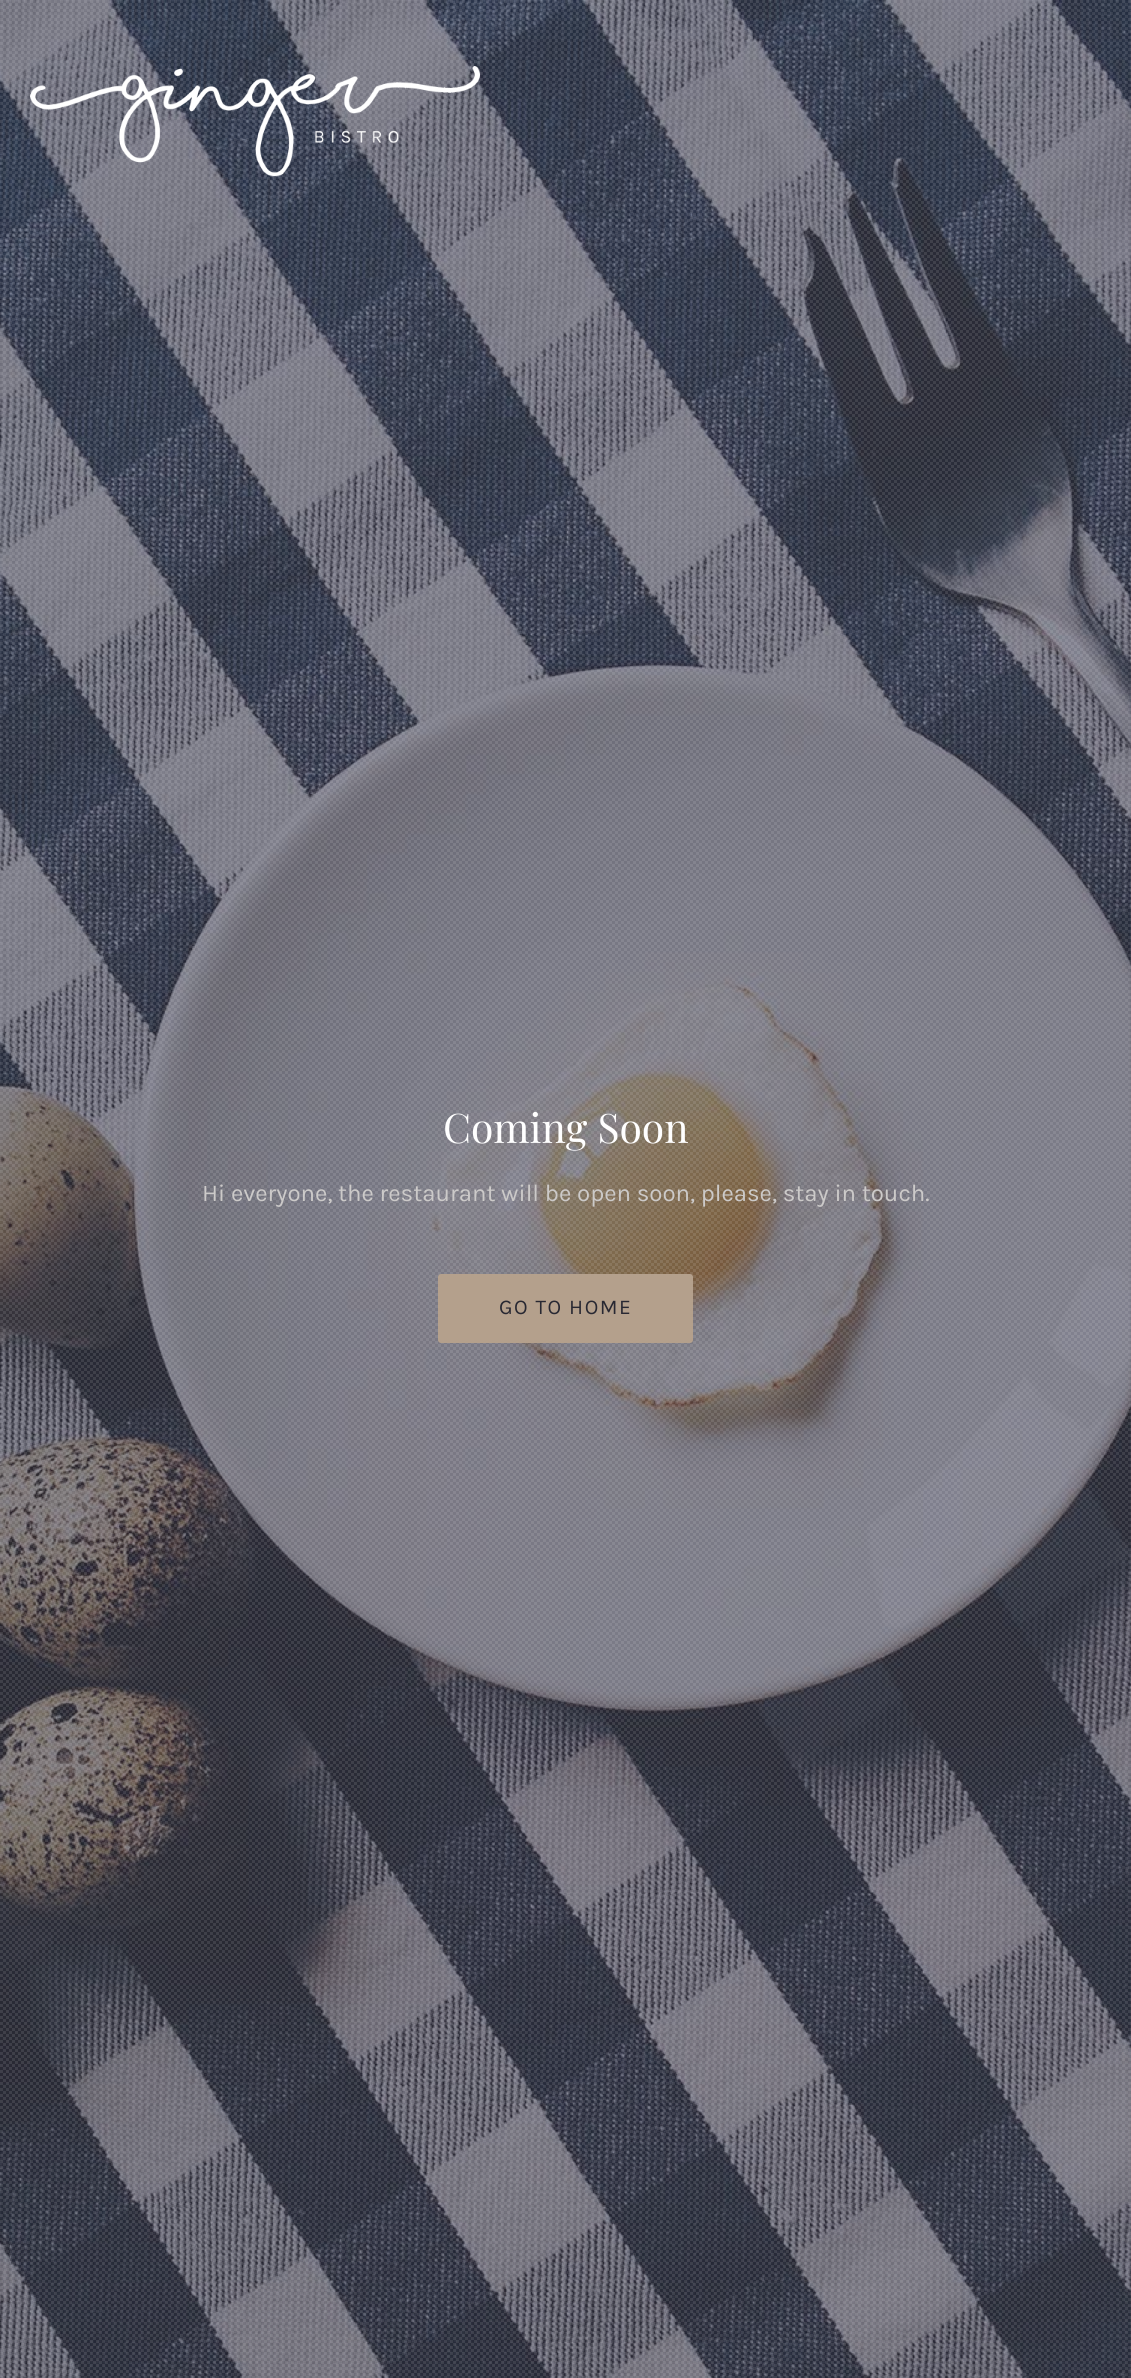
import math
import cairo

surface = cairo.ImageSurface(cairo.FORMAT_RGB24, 1131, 2378)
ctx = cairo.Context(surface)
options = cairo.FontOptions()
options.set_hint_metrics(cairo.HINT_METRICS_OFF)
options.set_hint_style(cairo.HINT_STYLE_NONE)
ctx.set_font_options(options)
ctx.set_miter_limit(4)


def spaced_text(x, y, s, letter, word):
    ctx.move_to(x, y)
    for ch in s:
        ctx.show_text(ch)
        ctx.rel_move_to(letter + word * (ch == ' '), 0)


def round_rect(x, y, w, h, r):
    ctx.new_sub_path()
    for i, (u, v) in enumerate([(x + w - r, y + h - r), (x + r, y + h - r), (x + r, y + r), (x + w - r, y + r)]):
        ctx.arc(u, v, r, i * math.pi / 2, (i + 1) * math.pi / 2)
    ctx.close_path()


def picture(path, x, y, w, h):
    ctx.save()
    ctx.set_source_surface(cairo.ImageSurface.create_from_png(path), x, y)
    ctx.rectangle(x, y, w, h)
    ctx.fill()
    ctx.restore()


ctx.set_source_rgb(1, 1, 1)
ctx.paint()
picture("img1.png", 1129, 0, 2, 2378)
picture("img3.png", 0, 0, 1131, 2378)
picture("img4.png", 0, 0, 1131, 2378)
picture("img2.png", 30, 66, 450, 111)
ctx.select_font_face("Playfair Display")
ctx.set_font_size(40.75)
ctx.set_source_rgb(1, 1, 1)
ctx.move_to(443, 1143)
ctx.show_text("Coming Soon")
ctx.select_font_face("Karla")
ctx.set_font_size(24)
ctx.set_source_rgb(0.8, 0.792, 0.788)
ctx.move_to(202, 1201)
ctx.show_text("Hi everyone, the restaurant will be open soon, please, stay in touch.")
ctx.set_source_rgb(0.706, 0.627, 0.549)
round_rect(438, 1274, 255, 69, 3)
ctx.fill()
ctx.set_font_size(21)
ctx.set_source_rgb(0.157, 0.157, 0.196)
spaced_text(499, 1314, "GO TO HOME", 1.5, 0)
surface.write_to_png("page.png")
